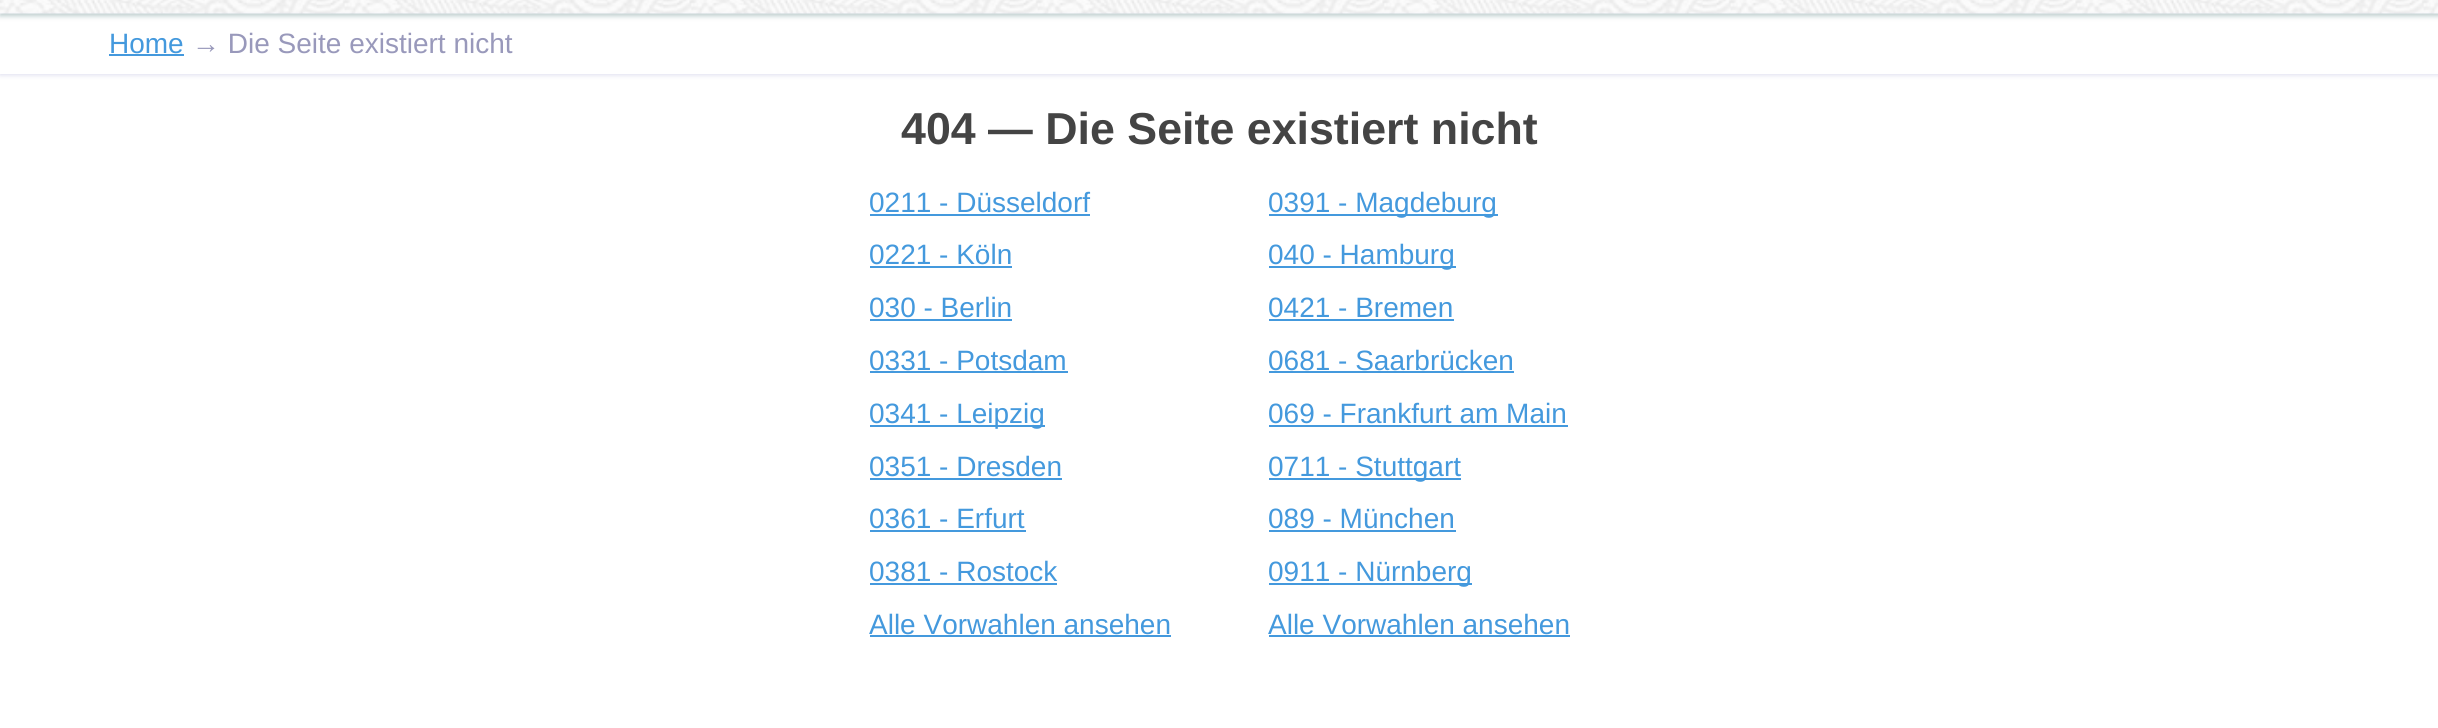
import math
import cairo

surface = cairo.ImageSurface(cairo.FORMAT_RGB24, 2438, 728)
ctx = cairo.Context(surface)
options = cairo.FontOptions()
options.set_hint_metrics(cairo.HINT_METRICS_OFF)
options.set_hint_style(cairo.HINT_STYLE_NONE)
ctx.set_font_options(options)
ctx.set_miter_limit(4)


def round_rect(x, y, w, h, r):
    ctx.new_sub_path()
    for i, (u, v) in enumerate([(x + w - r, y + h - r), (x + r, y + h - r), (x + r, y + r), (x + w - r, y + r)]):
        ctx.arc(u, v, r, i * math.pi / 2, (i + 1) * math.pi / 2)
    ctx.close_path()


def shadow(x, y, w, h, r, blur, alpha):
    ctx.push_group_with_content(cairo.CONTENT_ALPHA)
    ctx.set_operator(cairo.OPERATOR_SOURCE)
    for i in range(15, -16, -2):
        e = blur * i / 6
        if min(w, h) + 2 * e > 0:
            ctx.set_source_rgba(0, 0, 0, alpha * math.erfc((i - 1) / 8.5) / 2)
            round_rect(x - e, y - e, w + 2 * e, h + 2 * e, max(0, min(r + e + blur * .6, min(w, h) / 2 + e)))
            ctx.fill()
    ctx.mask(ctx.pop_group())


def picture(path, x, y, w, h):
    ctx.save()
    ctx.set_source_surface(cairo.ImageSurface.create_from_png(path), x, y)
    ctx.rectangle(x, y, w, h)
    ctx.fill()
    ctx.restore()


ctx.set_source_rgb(1, 1, 1)
ctx.paint()
ctx.set_source_rgb(0.733, 0.8, 0.8)
shadow(0, -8, 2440, 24, 0, 2.5, 1)
picture("img1.png", 0, 0, 2438, 14)
ctx.save()
ctx.set_fill_rule(cairo.FILL_RULE_EVEN_ODD)
ctx.new_path()
ctx.move_to(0, 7)
ctx.line_to(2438, 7)
ctx.line_to(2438, 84)
ctx.line_to(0, 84)
ctx.close_path()
ctx.move_to(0, 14)
ctx.line_to(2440, 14)
ctx.line_to(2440, 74)
ctx.line_to(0, 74)
ctx.close_path()
ctx.clip()
ctx.set_source_rgb(0.867, 0.867, 0.933)
shadow(0, 16, 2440, 59, 0, 2.5, 1)
ctx.restore()
ctx.select_font_face("Liberation Sans")
ctx.set_font_size(28)
ctx.set_source_rgb(0.267, 0.6, 0.867)
ctx.move_to(109, 53)
ctx.show_text("Home")
ctx.rectangle(109, 54, 75, 2)
ctx.fill()
ctx.set_source_rgb(0.6, 0.6, 0.733)
ctx.move_to(192, 53)
ctx.show_text("→ Die Seite existiert nicht")
ctx.select_font_face("Liberation Sans", cairo.FONT_SLANT_NORMAL, cairo.FONT_WEIGHT_BOLD)
ctx.set_font_size(44.75)
ctx.set_source_rgb(0.267, 0.267, 0.267)
ctx.move_to(901, 144)
ctx.show_text("404 — Die Seite existiert nicht")
ctx.select_font_face("Liberation Sans")
ctx.set_font_size(28)
ctx.set_source_rgb(0.267, 0.6, 0.867)
ctx.move_to(869, 212)
ctx.show_text("0211 - Düsseldorf")
ctx.rectangle(870, 214, 220, 2)
ctx.fill()
ctx.move_to(869, 264)
ctx.show_text("0221 - Köln")
ctx.rectangle(870, 266, 142, 2)
ctx.fill()
ctx.move_to(869, 317)
ctx.show_text("030 - Berlin")
ctx.rectangle(870, 319, 142, 2)
ctx.fill()
ctx.move_to(869, 370)
ctx.show_text("0331 - Potsdam")
ctx.rectangle(870, 371, 198, 2)
ctx.fill()
ctx.rectangle(870, 425, 175, 2)
ctx.fill()
ctx.move_to(869, 423)
ctx.show_text("0341 - Leipzig")
ctx.move_to(869, 476)
ctx.show_text("0351 - Dresden")
ctx.rectangle(870, 478, 192, 2)
ctx.fill()
ctx.move_to(869, 528)
ctx.show_text("0361 - Erfurt")
ctx.rectangle(870, 530, 156, 2)
ctx.fill()
ctx.move_to(869, 581)
ctx.show_text("0381 - Rostock")
ctx.rectangle(870, 583, 187, 2)
ctx.fill()
ctx.move_to(869, 634)
ctx.show_text("Alle Vorwahlen ansehen")
ctx.rectangle(870, 635, 301, 2)
ctx.fill()
ctx.rectangle(1269, 214, 229, 2)
ctx.fill()
ctx.move_to(1268, 212)
ctx.show_text("0391 - Magdeburg")
ctx.rectangle(1269, 266, 187, 2)
ctx.fill()
ctx.move_to(1268, 264)
ctx.show_text("040 - Hamburg")
ctx.move_to(1268, 317)
ctx.show_text("0421 - Bremen")
ctx.rectangle(1269, 319, 185, 2)
ctx.fill()
ctx.move_to(1268, 370)
ctx.show_text("0681 - Saarbrücken")
ctx.rectangle(1269, 371, 245, 2)
ctx.fill()
ctx.move_to(1268, 423)
ctx.show_text("069 - Frankfurt am Main")
ctx.rectangle(1269, 425, 299, 2)
ctx.fill()
ctx.rectangle(1269, 478, 192, 2)
ctx.fill()
ctx.move_to(1268, 476)
ctx.show_text("0711 - Stuttgart")
ctx.move_to(1268, 528)
ctx.show_text("089 - München")
ctx.rectangle(1269, 530, 187, 2)
ctx.fill()
ctx.rectangle(1269, 583, 203, 2)
ctx.fill()
ctx.move_to(1268, 581)
ctx.show_text("0911 - Nürnberg")
ctx.move_to(1268, 634)
ctx.show_text("Alle Vorwahlen ansehen")
ctx.rectangle(1269, 635, 301, 2)
ctx.fill()
surface.write_to_png("page.png")
